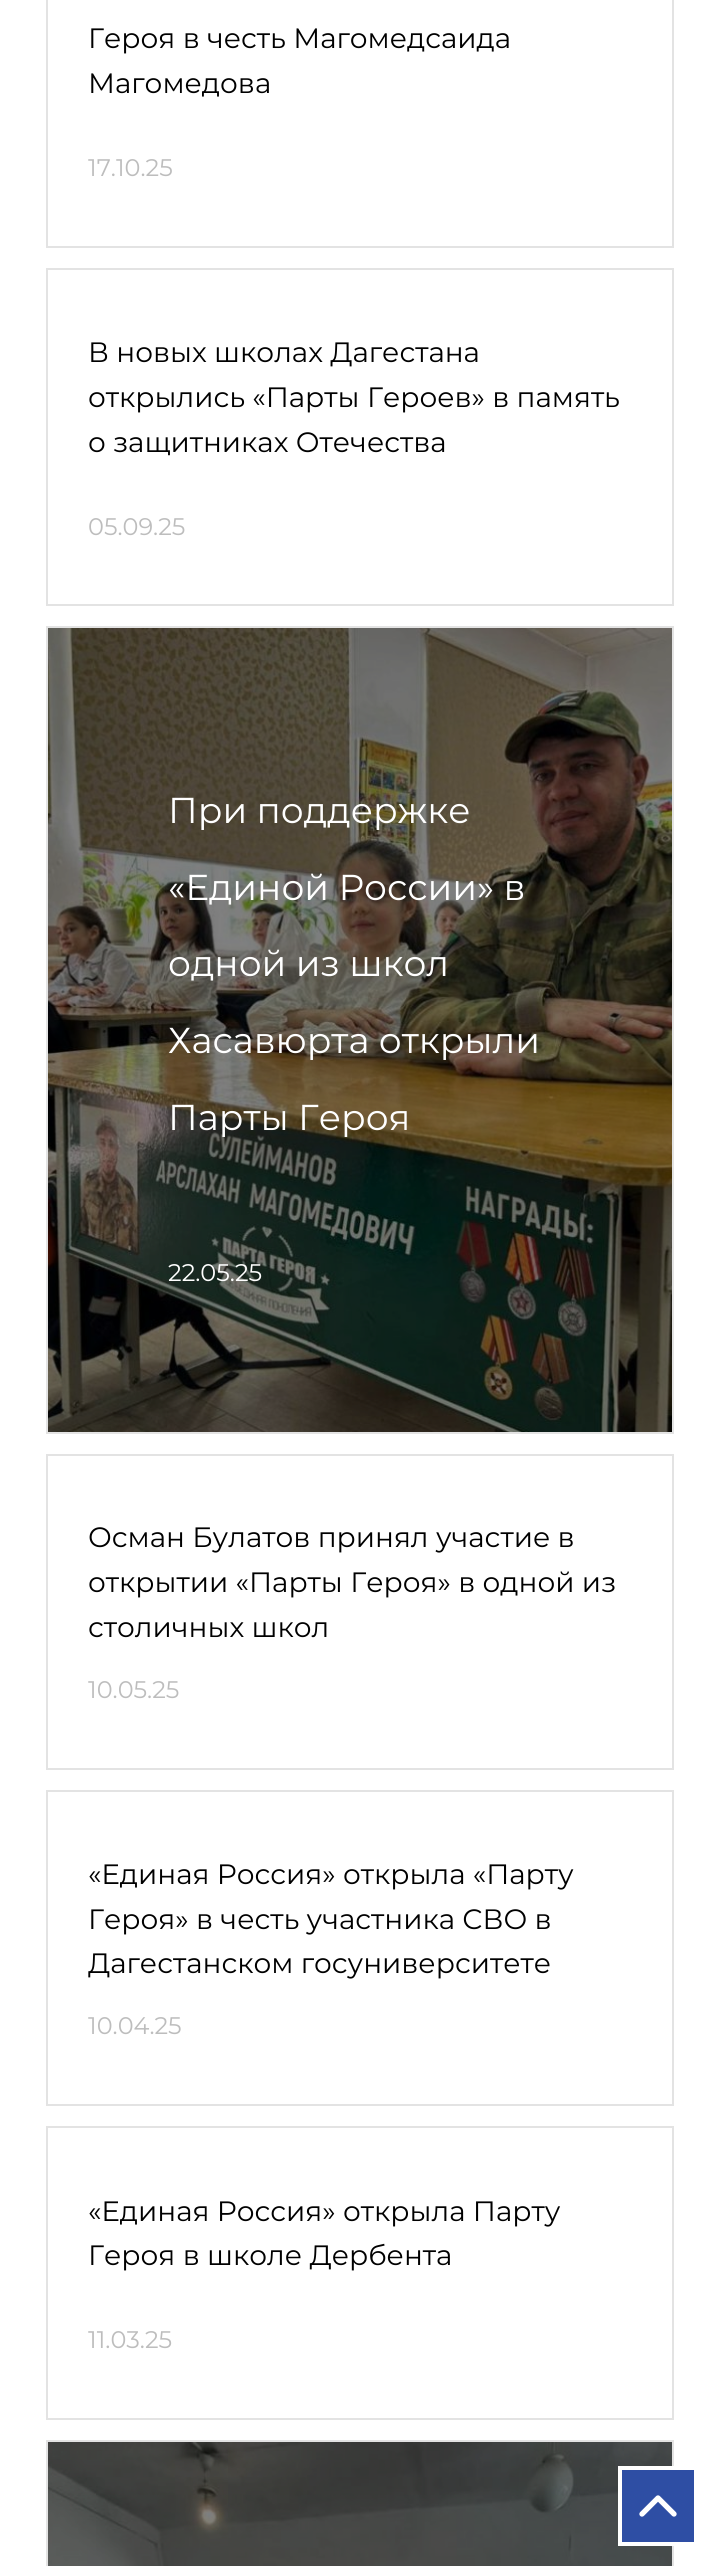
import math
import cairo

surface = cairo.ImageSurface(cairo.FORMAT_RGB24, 718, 2566)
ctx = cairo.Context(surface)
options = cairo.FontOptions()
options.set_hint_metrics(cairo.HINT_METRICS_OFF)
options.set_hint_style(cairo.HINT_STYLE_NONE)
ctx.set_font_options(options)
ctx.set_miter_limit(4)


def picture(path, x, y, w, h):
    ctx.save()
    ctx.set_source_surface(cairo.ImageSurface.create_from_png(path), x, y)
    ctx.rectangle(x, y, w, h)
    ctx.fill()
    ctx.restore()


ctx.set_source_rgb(1, 1, 1)
ctx.paint()
ctx.rectangle(47, -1, 626, 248)
ctx.set_source_rgb(0.89, 0.89, 0.89)
ctx.stroke()
ctx.select_font_face("Montserrat")
ctx.set_font_size(28)
ctx.set_source_rgb(0, 0, 0)
ctx.move_to(88, 48)
ctx.show_text("Героя в честь Магомедсаида")
ctx.move_to(88, 93)
ctx.show_text("Магомедова")
ctx.set_font_size(24)
ctx.set_source_rgb(0.741, 0.741, 0.741)
ctx.move_to(88, 176)
ctx.show_text("17.10.25")
ctx.rectangle(47, 269, 626, 336)
ctx.set_source_rgb(0.89, 0.89, 0.89)
ctx.stroke()
ctx.set_font_size(28)
ctx.set_source_rgb(0, 0, 0)
ctx.move_to(88, 362)
ctx.show_text("В новых школах Дагестана")
ctx.move_to(88, 407)
ctx.show_text("открылись «Парты Героев» в память")
ctx.move_to(88, 452)
ctx.show_text("о защитниках Отечества")
ctx.set_font_size(24)
ctx.set_source_rgb(0.741, 0.741, 0.741)
ctx.move_to(88, 535)
ctx.show_text("05.09.25")
picture("img1.png", 48, 628, 624, 804)
ctx.rectangle(47, 627, 626, 806)
ctx.set_source_rgb(0.89, 0.89, 0.89)
ctx.stroke()
ctx.set_font_size(36)
ctx.set_source_rgb(1, 1, 1)
ctx.move_to(168, 823)
ctx.show_text("При поддержке")
ctx.move_to(168, 900)
ctx.show_text("«Единой России» в")
ctx.move_to(168, 976)
ctx.show_text("одной из школ")
ctx.move_to(168, 1053)
ctx.show_text("Хасавюрта открыли")
ctx.move_to(168, 1130)
ctx.show_text("Парты Героя")
ctx.set_font_size(24)
ctx.move_to(168, 1281)
ctx.show_text("22.05.25")
ctx.rectangle(47, 1455, 626, 314)
ctx.set_source_rgb(0.89, 0.89, 0.89)
ctx.stroke()
ctx.set_font_size(28)
ctx.set_source_rgb(0, 0, 0)
ctx.move_to(88, 1547)
ctx.show_text("Осман Булатов принял участие в")
ctx.move_to(88, 1592)
ctx.show_text("открытии «Парты Героя» в одной из")
ctx.move_to(88, 1637)
ctx.show_text("столичных школ")
ctx.set_font_size(24)
ctx.set_source_rgb(0.741, 0.741, 0.741)
ctx.move_to(88, 1698)
ctx.show_text("10.05.25")
ctx.rectangle(47, 1791, 626, 314)
ctx.set_source_rgb(0.89, 0.89, 0.89)
ctx.stroke()
ctx.set_font_size(28)
ctx.set_source_rgb(0, 0, 0)
ctx.move_to(88, 1884)
ctx.show_text("«Единая Россия» открыла «Парту")
ctx.move_to(88, 1929)
ctx.show_text("Героя» в честь участника СВО в")
ctx.move_to(88, 1973)
ctx.show_text("Дагестанском госуниверситете")
ctx.set_font_size(24)
ctx.set_source_rgb(0.741, 0.741, 0.741)
ctx.move_to(88, 2034)
ctx.show_text("10.04.25")
ctx.rectangle(47, 2127, 626, 292)
ctx.set_source_rgb(0.89, 0.89, 0.89)
ctx.stroke()
ctx.set_font_size(28)
ctx.set_source_rgb(0, 0, 0)
ctx.move_to(88, 2221)
ctx.show_text("«Единая Россия» открыла Парту")
ctx.move_to(88, 2265)
ctx.show_text("Героя в школе Дербента")
ctx.set_font_size(24)
ctx.set_source_rgb(0.741, 0.741, 0.741)
ctx.move_to(88, 2348)
ctx.show_text("11.03.25")
picture("img2.png", 48, 2442, 624, 124)
ctx.rectangle(47, 2441, 626, 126)
ctx.set_source_rgb(0.89, 0.89, 0.89)
ctx.stroke()
ctx.set_source_rgb(0.18, 0.306, 0.643)
ctx.rectangle(620, 2468, 76, 76)
ctx.fill_preserve()
ctx.set_source_rgb(1, 1, 1)
ctx.set_line_width(4)
ctx.stroke()
picture("img3.png", 639, 2495, 38, 22)
surface.write_to_png("page.png")
